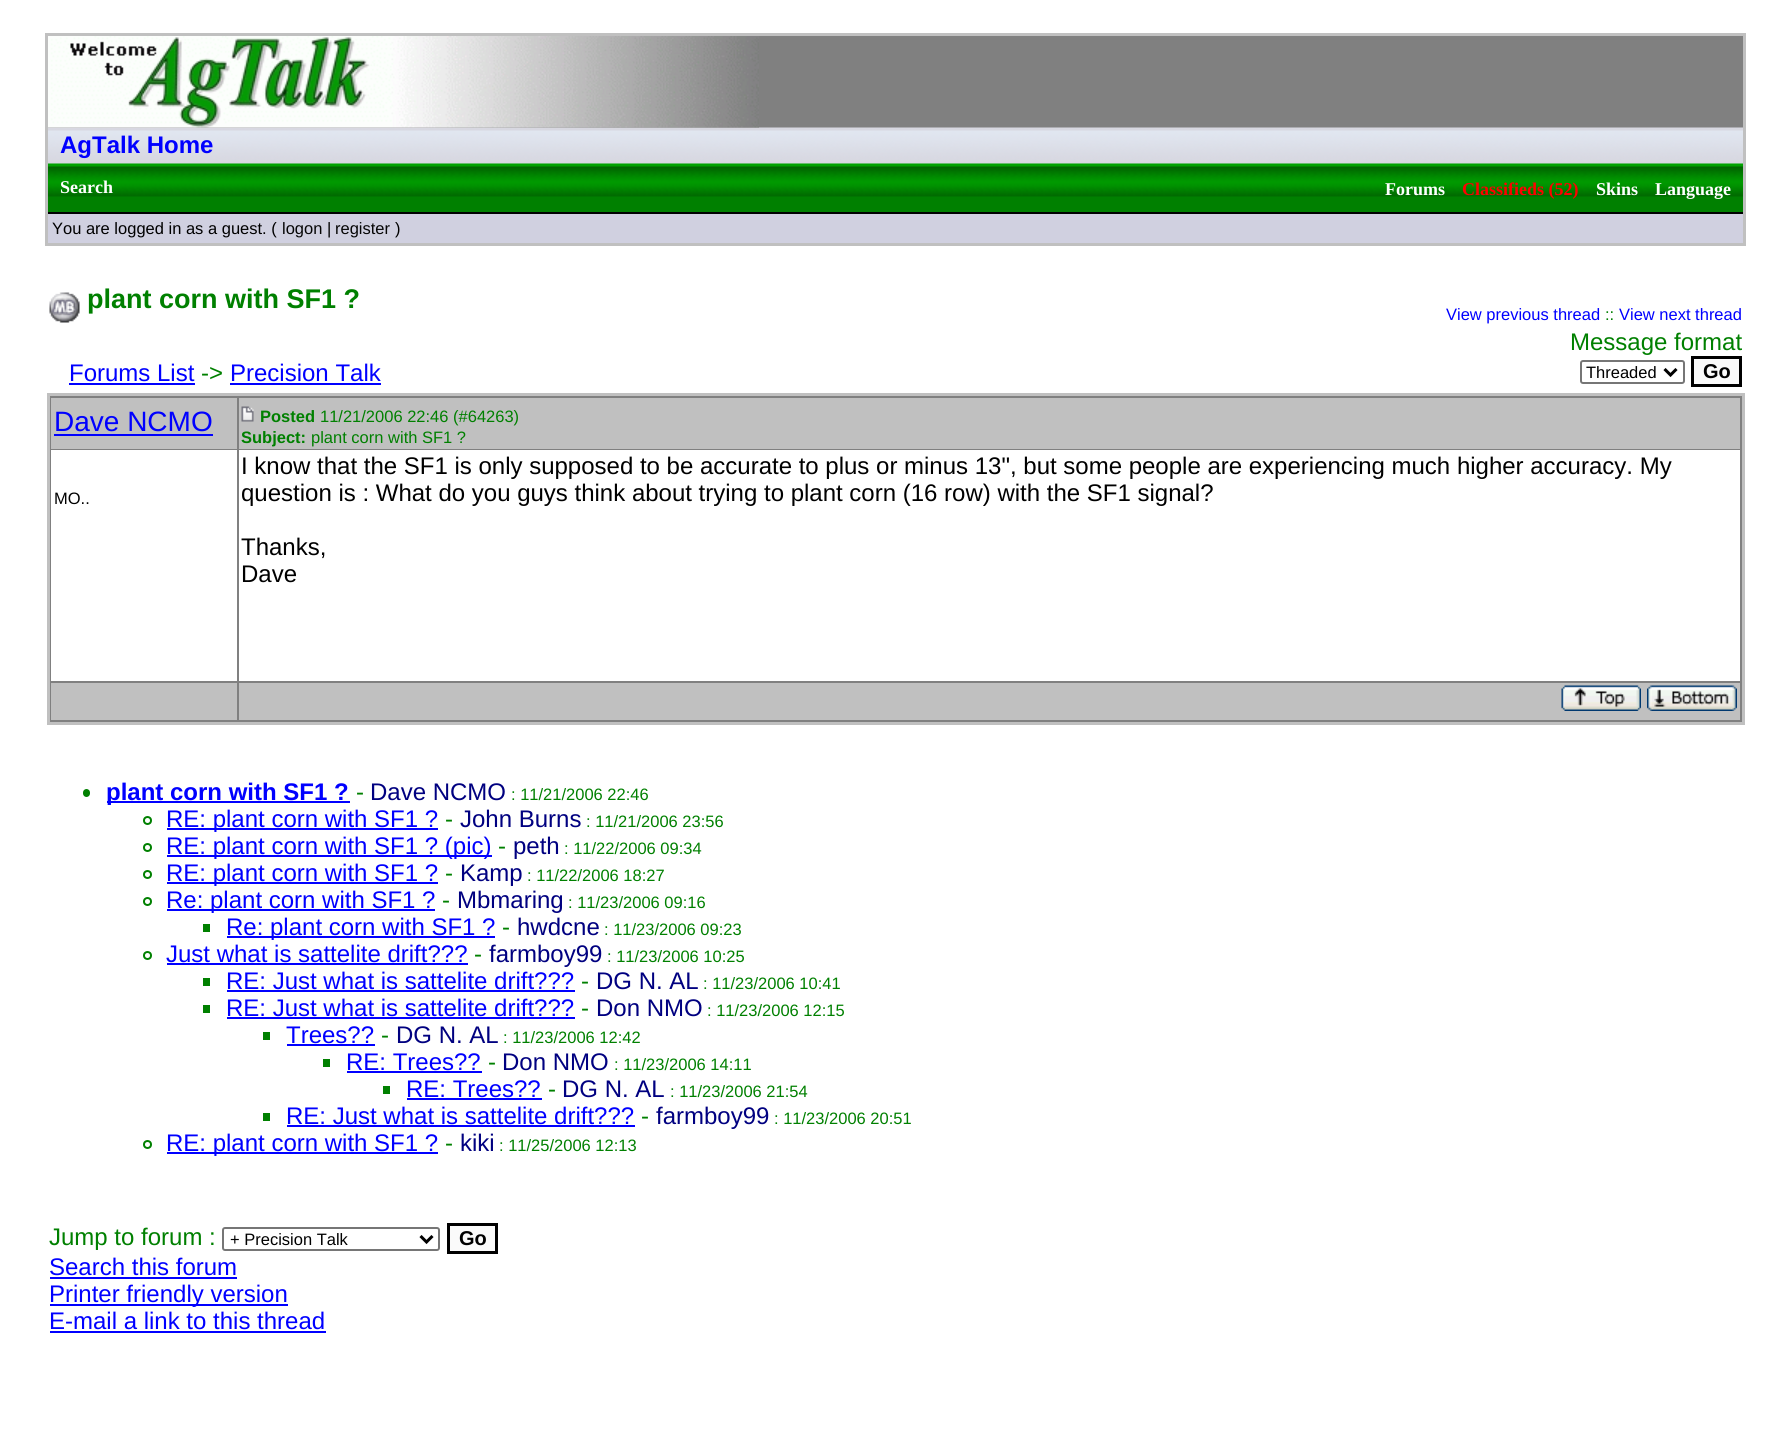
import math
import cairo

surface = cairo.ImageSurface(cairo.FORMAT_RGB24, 1791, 1432)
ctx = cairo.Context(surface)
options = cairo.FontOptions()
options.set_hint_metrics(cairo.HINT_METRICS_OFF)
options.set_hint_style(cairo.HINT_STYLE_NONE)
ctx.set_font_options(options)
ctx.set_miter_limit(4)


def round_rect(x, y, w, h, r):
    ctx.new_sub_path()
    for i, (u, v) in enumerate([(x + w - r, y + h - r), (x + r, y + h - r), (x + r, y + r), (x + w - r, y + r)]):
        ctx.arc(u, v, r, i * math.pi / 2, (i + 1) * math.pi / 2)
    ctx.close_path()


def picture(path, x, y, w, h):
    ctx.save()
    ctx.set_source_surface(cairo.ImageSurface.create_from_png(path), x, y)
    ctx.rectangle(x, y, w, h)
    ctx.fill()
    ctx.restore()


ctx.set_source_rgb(1, 1, 1)
ctx.paint()
ctx.set_source_rgb(0.502, 0.502, 0.502)
ctx.rectangle(48, 36, 1695, 92)
ctx.fill()
ctx.rectangle(46.5, 34.5, 1698, 210)
ctx.set_source_rgb(0.753, 0.753, 0.753)
ctx.set_line_width(3)
ctx.stroke()
picture("img2.png", 48, 127, 1695, 36)
picture("img1.png", 48, 36, 711, 92)
ctx.set_source_rgb(0.816, 0.843, 0.867)
ctx.rectangle(48, 163, 1695, 1)
ctx.fill()
ctx.select_font_face("Liberation Sans", cairo.FONT_SLANT_NORMAL, cairo.FONT_WEIGHT_BOLD)
ctx.set_font_size(24)
ctx.set_source_rgb(0, 0, 1)
ctx.move_to(60, 153)
ctx.show_text("AgTalk Home")
ctx.set_source_rgb(0, 0.502, 0)
ctx.rectangle(48, 196, 1695, 16)
ctx.fill()
picture("img3.png", 48, 163, 1695, 34)
ctx.select_font_face("Liberation Serif", cairo.FONT_SLANT_NORMAL, cairo.FONT_WEIGHT_BOLD)
ctx.set_font_size(18)
ctx.set_source_rgb(1, 1, 1)
ctx.move_to(60, 193)
ctx.show_text("Search")
ctx.move_to(1385, 195)
ctx.show_text("Forums")
ctx.set_source_rgb(1, 0, 0)
ctx.move_to(1462, 195)
ctx.show_text("Classifieds (52)")
ctx.set_source_rgb(1, 1, 1)
ctx.move_to(1596, 195)
ctx.show_text("Skins")
ctx.move_to(1655, 195)
ctx.show_text("Language")
ctx.set_source_rgb(0.816, 0.816, 0.878)
ctx.rectangle(48, 214, 1695, 29)
ctx.fill()
ctx.set_source_rgb(0, 0, 0)
ctx.rectangle(48, 212, 1695, 2)
ctx.fill()
ctx.select_font_face("Liberation Sans")
ctx.set_font_size(16.5)
ctx.move_to(52, 234)
ctx.show_text("You are logged in as a guest. (")
ctx.set_source_rgb(0.027, 0.027, 0.027)
ctx.move_to(282, 234)
ctx.show_text("logon")
ctx.set_source_rgb(0, 0, 0)
ctx.move_to(327, 234)
ctx.show_text("|")
ctx.set_source_rgb(0.027, 0.027, 0.027)
ctx.move_to(335, 234)
ctx.show_text("register")
ctx.set_source_rgb(0, 0, 0)
ctx.move_to(395, 234)
ctx.show_text(")")
picture("img4.png", 49, 292, 31, 31)
ctx.select_font_face("Liberation Sans", cairo.FONT_SLANT_NORMAL, cairo.FONT_WEIGHT_BOLD)
ctx.set_font_size(27)
ctx.set_source_rgb(0, 0.502, 0)
ctx.move_to(87, 308)
ctx.show_text("plant corn with SF1 ?")
ctx.select_font_face("Liberation Sans")
ctx.set_font_size(16.5)
ctx.set_source_rgb(0, 0, 1)
ctx.move_to(1446, 320)
ctx.show_text("View previous thread")
ctx.set_source_rgb(0, 0.502, 0)
ctx.move_to(1605, 320)
ctx.show_text("::")
ctx.set_source_rgb(0, 0, 1)
ctx.move_to(1619, 320)
ctx.show_text("View next thread")
ctx.set_font_size(24)
ctx.move_to(69, 381)
ctx.show_text("Forums List")
ctx.rectangle(69, 383, 126, 2)
ctx.fill()
ctx.set_source_rgb(0, 0.502, 0)
ctx.move_to(201, 381)
ctx.show_text("->")
ctx.set_source_rgb(0, 0, 1)
ctx.move_to(230, 381)
ctx.show_text("Precision Talk")
ctx.rectangle(230, 383, 151, 2)
ctx.fill()
ctx.set_source_rgb(0, 0.502, 0)
ctx.move_to(1570, 350)
ctx.show_text("Message format")
round_rect(1581, 361, 103, 22, 2)
ctx.set_source_rgb(0.463, 0.463, 0.463)
ctx.set_line_width(2)
ctx.stroke()
ctx.new_path()
ctx.move_to(1664.5, 369)
ctx.line_to(1670.5, 375)
ctx.line_to(1676.5, 369)
ctx.set_source_rgb(0, 0, 0)
ctx.set_line_width(3)
ctx.stroke()
ctx.set_font_size(16.5)
ctx.move_to(1586, 378)
ctx.show_text("Threaded")
ctx.set_source_rgb(0.98, 0.98, 0.98)
ctx.rectangle(1692.5, 357.5, 48, 28)
ctx.fill_preserve()
ctx.set_source_rgb(0, 0, 0)
ctx.stroke()
ctx.select_font_face("Liberation Sans", cairo.FONT_SLANT_NORMAL, cairo.FONT_WEIGHT_BOLD)
ctx.set_font_size(20)
ctx.move_to(1703, 378)
ctx.show_text("Go")
ctx.set_source_rgb(0.502, 0.502, 0.502)
ctx.rectangle(48.5, 394.5, 1695, 329)
ctx.fill_preserve()
ctx.set_source_rgb(0.753, 0.753, 0.753)
ctx.stroke()
ctx.rectangle(51, 398, 186, 51)
ctx.fill()
ctx.select_font_face("Liberation Sans")
ctx.set_font_size(28)
ctx.set_source_rgb(0, 0, 1)
ctx.move_to(54, 431)
ctx.show_text("Dave NCMO")
ctx.rectangle(54, 434, 159, 2)
ctx.fill()
ctx.set_source_rgb(0.753, 0.753, 0.753)
ctx.rectangle(239, 398, 1501, 51)
ctx.fill()
picture("img5.png", 241, 406, 13, 16)
ctx.select_font_face("Liberation Sans", cairo.FONT_SLANT_NORMAL, cairo.FONT_WEIGHT_BOLD)
ctx.set_font_size(16.5)
ctx.set_source_rgb(0, 0.502, 0)
ctx.move_to(260, 422)
ctx.show_text("Posted")
ctx.select_font_face("Liberation Sans")
ctx.move_to(320, 422)
ctx.show_text("11/21/2006 22:46 (#64263)")
ctx.select_font_face("Liberation Sans", cairo.FONT_SLANT_NORMAL, cairo.FONT_WEIGHT_BOLD)
ctx.move_to(241, 443)
ctx.show_text("Subject:")
ctx.select_font_face("Liberation Sans")
ctx.move_to(311, 443)
ctx.show_text("plant corn with SF1 ?")
ctx.set_source_rgb(1, 1, 1)
ctx.rectangle(51, 450, 186, 231)
ctx.fill()
ctx.set_source_rgb(0, 0, 0)
ctx.move_to(54, 504)
ctx.show_text("MO..")
ctx.set_source_rgb(1, 1, 1)
ctx.rectangle(239, 450, 1501, 231)
ctx.fill()
ctx.set_font_size(24)
ctx.set_source_rgb(0, 0, 0)
ctx.move_to(241, 474)
ctx.show_text("I know that the SF1 is only supposed to be accurate to plus or minus 13\", but some people are experiencing much higher accuracy. My")
ctx.move_to(241, 501)
ctx.show_text("question is : What do you guys think about trying to plant corn (16 row) with the SF1 signal?")
ctx.move_to(241, 555)
ctx.show_text("Thanks,")
ctx.move_to(241, 582)
ctx.show_text("Dave")
ctx.set_source_rgb(0.753, 0.753, 0.753)
ctx.rectangle(51, 683, 186, 37)
ctx.fill()
ctx.rectangle(239, 683, 1501, 37)
ctx.fill()
picture("img6.png", 1561, 685, 80, 26)
picture("img7.png", 1647, 685, 90, 26)
ctx.set_source_rgb(0, 0.502, 0)
round_rect(83, 789, 7, 8, 3.5)
ctx.fill()
ctx.set_source_rgb(0, 0, 1)
ctx.rectangle(107, 801, 243, 2)
ctx.fill()
ctx.select_font_face("Liberation Sans", cairo.FONT_SLANT_NORMAL, cairo.FONT_WEIGHT_BOLD)
ctx.move_to(106, 800)
ctx.show_text("plant corn with SF1 ?")
ctx.select_font_face("Liberation Sans")
ctx.set_source_rgb(0, 0.502, 0)
ctx.move_to(356, 800)
ctx.show_text("-")
ctx.set_source_rgb(0, 0, 0.502)
ctx.move_to(370, 800)
ctx.show_text("Dave NCMO")
ctx.set_font_size(16.5)
ctx.set_source_rgb(0, 0.502, 0)
ctx.move_to(511, 800)
ctx.show_text(": 11/21/2006 22:46")
ctx.new_path()
ctx.arc(147.5, 820.5, 3.5, 0, 2 * math.pi)
ctx.set_line_width(2)
ctx.stroke()
ctx.set_source_rgb(0, 0, 1)
ctx.rectangle(167, 828, 271, 2)
ctx.fill()
ctx.set_font_size(24)
ctx.move_to(166, 827)
ctx.show_text("RE: plant corn with SF1 ?")
ctx.set_source_rgb(0, 0.502, 0)
ctx.move_to(445, 827)
ctx.show_text("-")
ctx.set_source_rgb(0, 0, 0.502)
ctx.move_to(460, 827)
ctx.show_text("John Burns")
ctx.set_font_size(16.5)
ctx.set_source_rgb(0, 0.502, 0)
ctx.move_to(586, 827)
ctx.show_text(": 11/21/2006 23:56")
ctx.new_path()
ctx.arc(147.5, 847.5, 3.5, 0, 2 * math.pi)
ctx.stroke()
ctx.set_source_rgb(0, 0, 1)
ctx.rectangle(167, 855, 325, 2)
ctx.fill()
ctx.set_font_size(24)
ctx.move_to(166, 854)
ctx.show_text("RE: plant corn with SF1 ? (pic)")
ctx.set_source_rgb(0, 0.502, 0)
ctx.move_to(498, 854)
ctx.show_text("-")
ctx.set_source_rgb(0, 0, 0.502)
ctx.move_to(513, 854)
ctx.show_text("peth")
ctx.set_font_size(16.5)
ctx.set_source_rgb(0, 0.502, 0)
ctx.move_to(564, 854)
ctx.show_text(": 11/22/2006 09:34")
ctx.new_path()
ctx.arc(147.5, 874.5, 3.5, 0, 2 * math.pi)
ctx.stroke()
ctx.set_source_rgb(0, 0, 1)
ctx.rectangle(167, 882, 271, 2)
ctx.fill()
ctx.set_font_size(24)
ctx.move_to(166, 881)
ctx.show_text("RE: plant corn with SF1 ?")
ctx.set_source_rgb(0, 0.502, 0)
ctx.move_to(445, 881)
ctx.show_text("-")
ctx.set_source_rgb(0, 0, 0.502)
ctx.move_to(460, 881)
ctx.show_text("Kamp")
ctx.set_font_size(16.5)
ctx.set_source_rgb(0, 0.502, 0)
ctx.move_to(527, 881)
ctx.show_text(": 11/22/2006 18:27")
ctx.new_path()
ctx.arc(147.5, 901.5, 3.5, 0, 2 * math.pi)
ctx.stroke()
ctx.set_source_rgb(0, 0, 1)
ctx.rectangle(167, 909, 268, 2)
ctx.fill()
ctx.set_font_size(24)
ctx.move_to(166, 908)
ctx.show_text("Re: plant corn with SF1 ?")
ctx.set_source_rgb(0, 0.502, 0)
ctx.move_to(442, 908)
ctx.show_text("-")
ctx.set_source_rgb(0, 0, 0.502)
ctx.move_to(457, 908)
ctx.show_text("Mbmaring")
ctx.set_font_size(16.5)
ctx.set_source_rgb(0, 0.502, 0)
ctx.move_to(568, 908)
ctx.show_text(": 11/23/2006 09:16")
ctx.rectangle(203, 924, 7, 8)
ctx.fill()
ctx.set_source_rgb(0, 0, 1)
ctx.rectangle(227, 936, 268, 2)
ctx.fill()
ctx.set_font_size(24)
ctx.move_to(226, 935)
ctx.show_text("Re: plant corn with SF1 ?")
ctx.set_source_rgb(0, 0.502, 0)
ctx.move_to(502, 935)
ctx.show_text("-")
ctx.set_source_rgb(0, 0, 0.502)
ctx.move_to(517, 935)
ctx.show_text("hwdcne")
ctx.set_font_size(16.5)
ctx.set_source_rgb(0, 0.502, 0)
ctx.move_to(604, 935)
ctx.show_text(": 11/23/2006 09:23")
ctx.new_path()
ctx.arc(147.5, 955.5, 3.5, 0, 2 * math.pi)
ctx.stroke()
ctx.set_font_size(24)
ctx.set_source_rgb(0, 0, 1)
ctx.move_to(166, 962)
ctx.show_text("Just what is sattelite drift???")
ctx.rectangle(167, 963, 301, 2)
ctx.fill()
ctx.set_source_rgb(0, 0.502, 0)
ctx.move_to(474, 962)
ctx.show_text("-")
ctx.set_source_rgb(0, 0, 0.502)
ctx.move_to(489, 962)
ctx.show_text("farmboy99")
ctx.set_font_size(16.5)
ctx.set_source_rgb(0, 0.502, 0)
ctx.move_to(607, 962)
ctx.show_text(": 11/23/2006 10:25")
ctx.rectangle(203, 978, 7, 8)
ctx.fill()
ctx.set_font_size(24)
ctx.set_source_rgb(0, 0, 1)
ctx.move_to(226, 989)
ctx.show_text("RE: Just what is sattelite drift???")
ctx.rectangle(227, 990, 348, 2)
ctx.fill()
ctx.set_source_rgb(0, 0.502, 0)
ctx.move_to(581, 989)
ctx.show_text("-")
ctx.set_source_rgb(0, 0, 0.502)
ctx.move_to(596, 989)
ctx.show_text("DG N. AL")
ctx.set_font_size(16.5)
ctx.set_source_rgb(0, 0.502, 0)
ctx.move_to(703, 989)
ctx.show_text(": 11/23/2006 10:41")
ctx.rectangle(203, 1005, 7, 8)
ctx.fill()
ctx.set_font_size(24)
ctx.set_source_rgb(0, 0, 1)
ctx.move_to(226, 1016)
ctx.show_text("RE: Just what is sattelite drift???")
ctx.rectangle(227, 1017, 348, 2)
ctx.fill()
ctx.set_source_rgb(0, 0.502, 0)
ctx.move_to(581, 1016)
ctx.show_text("-")
ctx.set_source_rgb(0, 0, 0.502)
ctx.move_to(596, 1016)
ctx.show_text("Don NMO")
ctx.set_font_size(16.5)
ctx.set_source_rgb(0, 0.502, 0)
ctx.move_to(707, 1016)
ctx.show_text(": 11/23/2006 12:15")
ctx.rectangle(263, 1032, 7, 8)
ctx.fill()
ctx.set_font_size(24)
ctx.set_source_rgb(0, 0, 1)
ctx.move_to(286, 1043)
ctx.show_text("Trees??")
ctx.rectangle(287, 1044, 88, 2)
ctx.fill()
ctx.set_source_rgb(0, 0.502, 0)
ctx.move_to(381, 1043)
ctx.show_text("-")
ctx.set_source_rgb(0, 0, 0.502)
ctx.move_to(396, 1043)
ctx.show_text("DG N. AL")
ctx.set_font_size(16.5)
ctx.set_source_rgb(0, 0.502, 0)
ctx.move_to(503, 1043)
ctx.show_text(": 11/23/2006 12:42")
ctx.rectangle(323, 1059, 7, 8)
ctx.fill()
ctx.set_font_size(24)
ctx.set_source_rgb(0, 0, 1)
ctx.move_to(346, 1070)
ctx.show_text("RE: Trees??")
ctx.rectangle(347, 1071, 135, 2)
ctx.fill()
ctx.set_source_rgb(0, 0.502, 0)
ctx.move_to(488, 1070)
ctx.show_text("-")
ctx.set_source_rgb(0, 0, 0.502)
ctx.move_to(502, 1070)
ctx.show_text("Don NMO")
ctx.set_font_size(16.5)
ctx.set_source_rgb(0, 0.502, 0)
ctx.move_to(614, 1070)
ctx.show_text(": 11/23/2006 14:11")
ctx.rectangle(383, 1086, 7, 8)
ctx.fill()
ctx.set_font_size(24)
ctx.set_source_rgb(0, 0, 1)
ctx.move_to(406, 1097)
ctx.show_text("RE: Trees??")
ctx.rectangle(407, 1098, 135, 2)
ctx.fill()
ctx.set_source_rgb(0, 0.502, 0)
ctx.move_to(548, 1097)
ctx.show_text("-")
ctx.set_source_rgb(0, 0, 0.502)
ctx.move_to(562, 1097)
ctx.show_text("DG N. AL")
ctx.set_font_size(16.5)
ctx.set_source_rgb(0, 0.502, 0)
ctx.move_to(670, 1097)
ctx.show_text(": 11/23/2006 21:54")
ctx.rectangle(263, 1113, 7, 8)
ctx.fill()
ctx.set_font_size(24)
ctx.set_source_rgb(0, 0, 1)
ctx.move_to(286, 1124)
ctx.show_text("RE: Just what is sattelite drift???")
ctx.rectangle(287, 1125, 348, 2)
ctx.fill()
ctx.set_source_rgb(0, 0.502, 0)
ctx.move_to(641, 1124)
ctx.show_text("-")
ctx.set_source_rgb(0, 0, 0.502)
ctx.move_to(656, 1124)
ctx.show_text("farmboy99")
ctx.set_font_size(16.5)
ctx.set_source_rgb(0, 0.502, 0)
ctx.move_to(774, 1124)
ctx.show_text(": 11/23/2006 20:51")
ctx.new_path()
ctx.arc(147.5, 1144.5, 3.5, 0, 2 * math.pi)
ctx.stroke()
ctx.set_source_rgb(0, 0, 1)
ctx.rectangle(167, 1152, 271, 2)
ctx.fill()
ctx.set_font_size(24)
ctx.move_to(166, 1151)
ctx.show_text("RE: plant corn with SF1 ?")
ctx.set_source_rgb(0, 0.502, 0)
ctx.move_to(445, 1151)
ctx.show_text("-")
ctx.set_source_rgb(0, 0, 0.502)
ctx.move_to(460, 1151)
ctx.show_text("kiki")
ctx.set_font_size(16.5)
ctx.set_source_rgb(0, 0.502, 0)
ctx.move_to(499, 1151)
ctx.show_text(": 11/25/2006 12:13")
ctx.set_font_size(24)
ctx.move_to(49, 1245)
ctx.show_text("Jump to forum :")
round_rect(223, 1228, 216, 22, 2)
ctx.set_source_rgb(0.463, 0.463, 0.463)
ctx.stroke()
ctx.new_path()
ctx.move_to(420.5, 1236)
ctx.line_to(426.5, 1242)
ctx.line_to(432.5, 1236)
ctx.set_source_rgb(0, 0, 0)
ctx.set_line_width(3)
ctx.stroke()
ctx.set_font_size(16.5)
ctx.move_to(230, 1245)
ctx.show_text("+ Precision Talk")
ctx.set_source_rgb(0.98, 0.98, 0.98)
ctx.rectangle(448.5, 1224.5, 48, 28)
ctx.fill_preserve()
ctx.set_source_rgb(0, 0, 0)
ctx.stroke()
ctx.select_font_face("Liberation Sans", cairo.FONT_SLANT_NORMAL, cairo.FONT_WEIGHT_BOLD)
ctx.set_font_size(20)
ctx.move_to(459, 1245)
ctx.show_text("Go")
ctx.select_font_face("Liberation Sans")
ctx.set_font_size(24)
ctx.set_source_rgb(0, 0, 1)
ctx.move_to(49, 1275)
ctx.show_text("Search this forum")
ctx.rectangle(50, 1277, 187, 2)
ctx.fill()
ctx.rectangle(50, 1304, 238, 2)
ctx.fill()
ctx.move_to(49, 1302)
ctx.show_text("Printer friendly version")
ctx.move_to(49, 1329)
ctx.show_text("E-mail a link to this thread")
ctx.rectangle(50, 1331, 276, 2)
ctx.fill()
surface.write_to_png("page.png")
